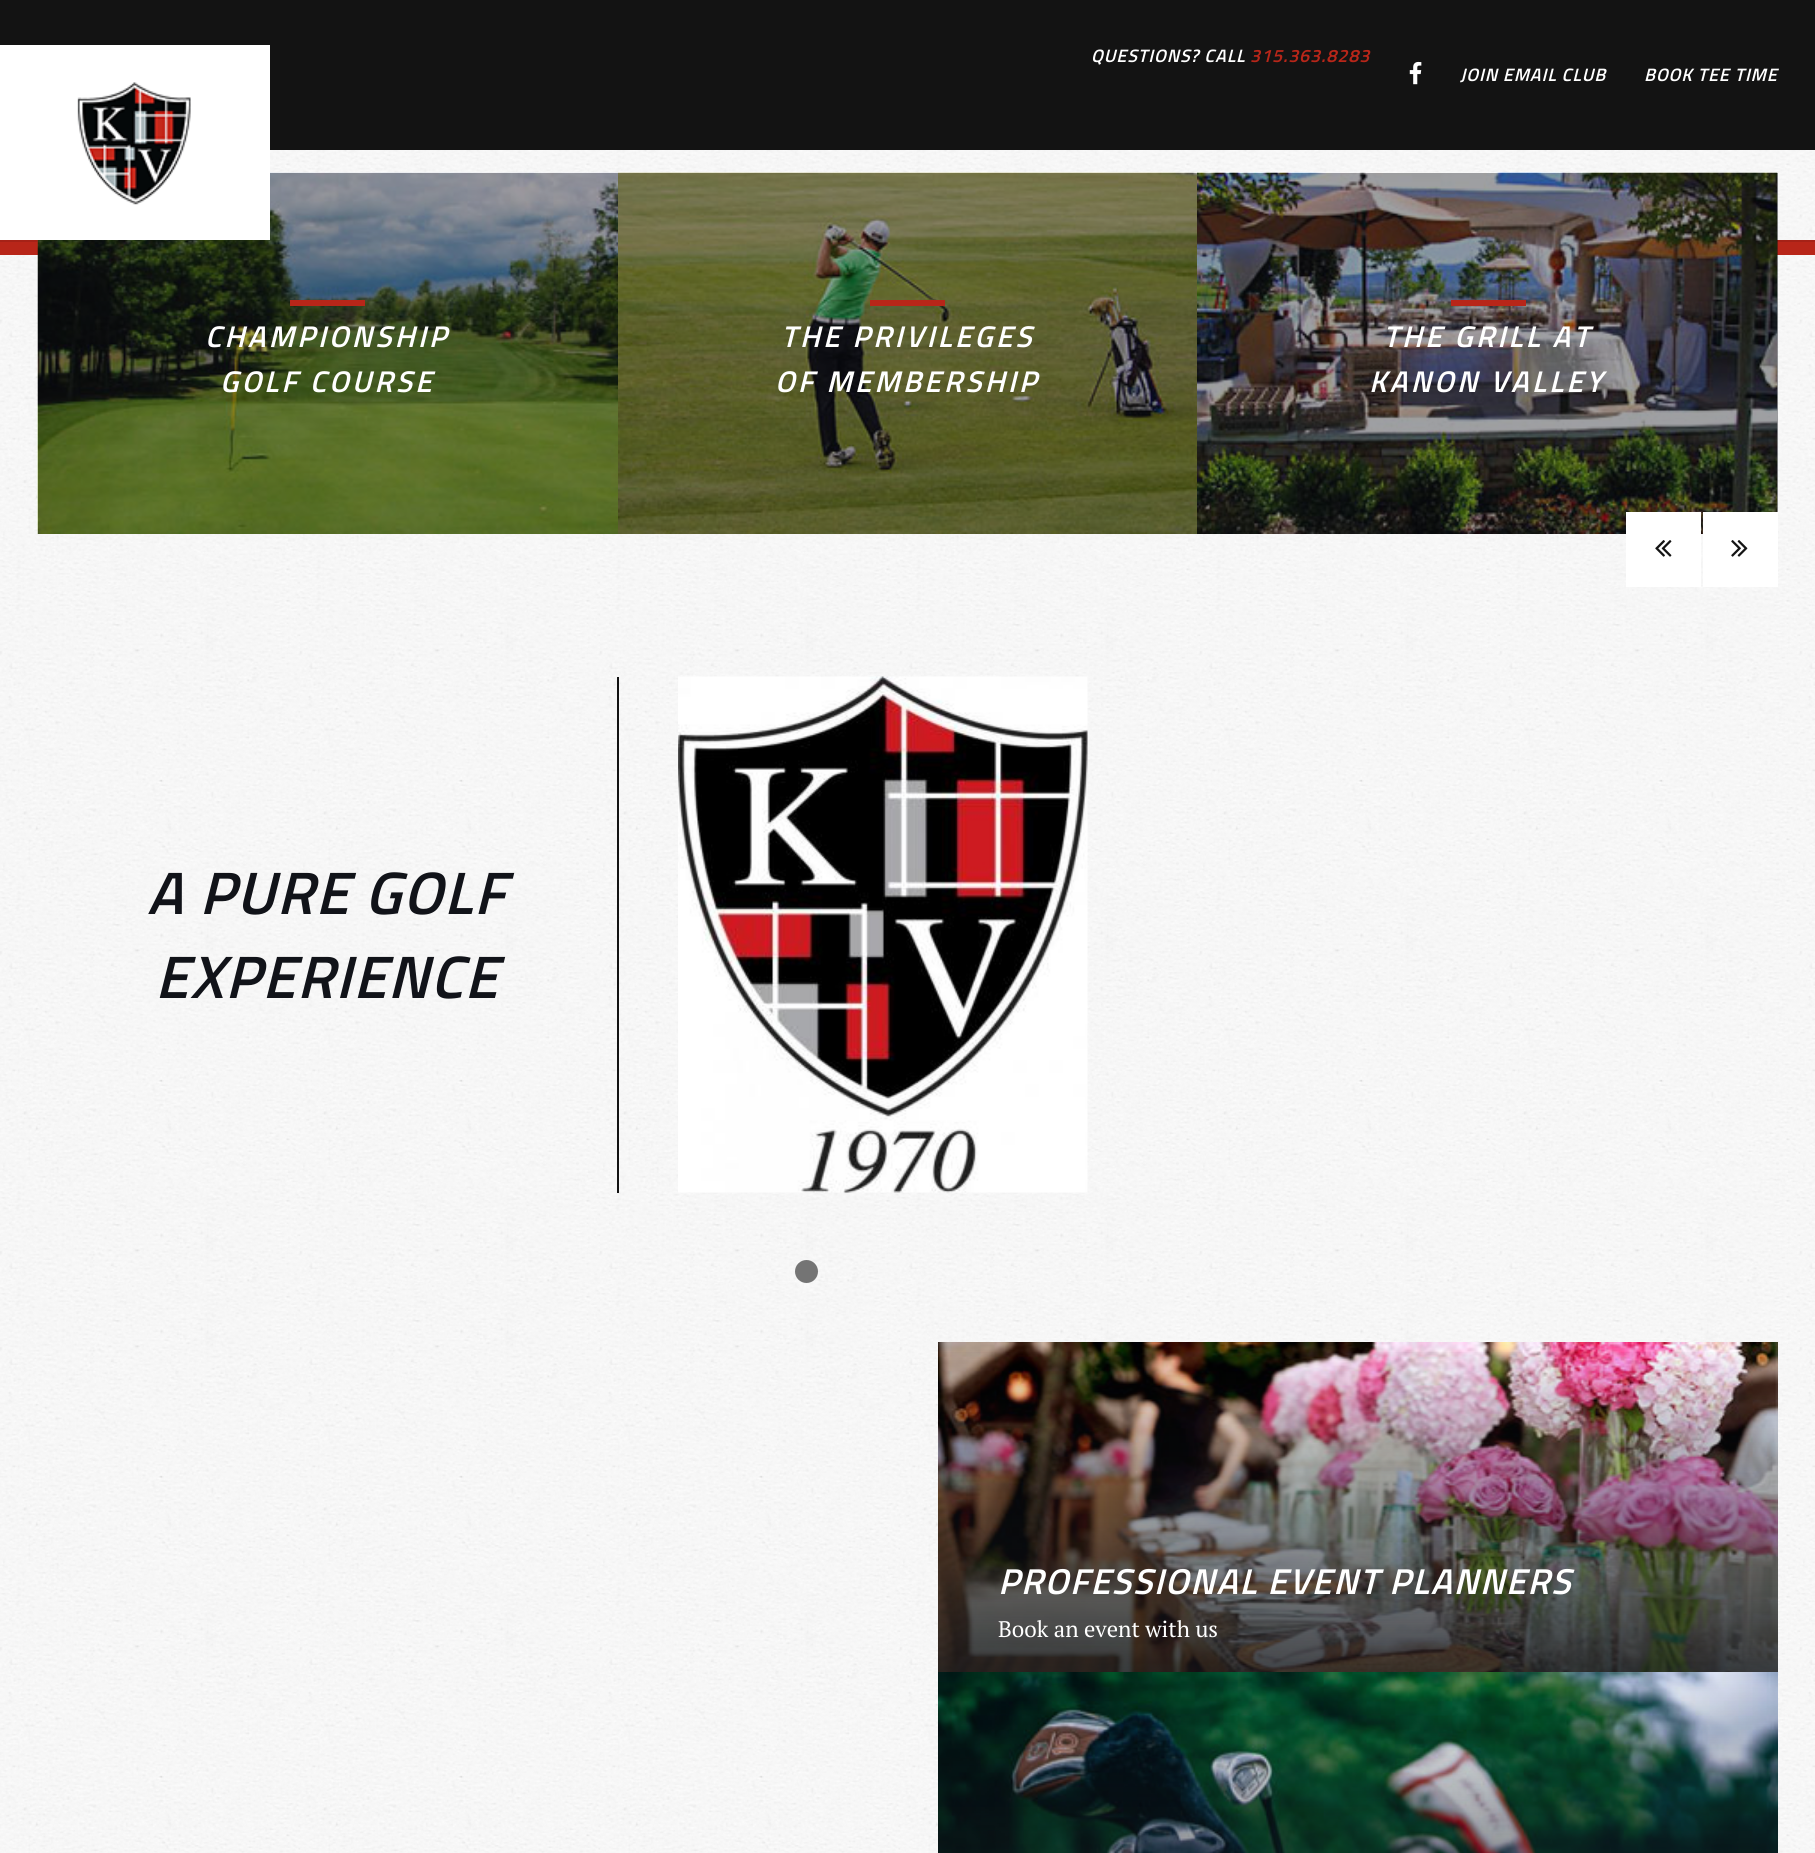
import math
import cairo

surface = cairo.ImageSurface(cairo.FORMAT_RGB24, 1815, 1853)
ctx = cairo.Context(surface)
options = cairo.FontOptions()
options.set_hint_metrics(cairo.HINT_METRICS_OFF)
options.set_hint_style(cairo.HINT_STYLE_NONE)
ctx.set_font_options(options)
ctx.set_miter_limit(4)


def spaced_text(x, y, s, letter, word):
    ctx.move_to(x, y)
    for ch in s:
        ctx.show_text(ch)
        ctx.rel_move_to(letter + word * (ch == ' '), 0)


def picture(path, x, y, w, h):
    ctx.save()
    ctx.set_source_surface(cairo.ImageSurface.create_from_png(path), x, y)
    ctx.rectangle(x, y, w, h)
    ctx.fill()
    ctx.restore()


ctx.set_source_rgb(1, 1, 1)
ctx.paint()
ctx.set_source_rgb(0.722, 0.149, 0.098)
ctx.rectangle(0, 242, 1815, 13)
ctx.fill()
ctx.set_source_rgb(0.651, 0.133, 0.09)
ctx.rectangle(0, 240, 1815, 2)
ctx.fill()
picture("img1.png", 270, 150, 1545, 90)
ctx.set_source_rgb(0.078, 0.078, 0.078)
ctx.rectangle(0, 0, 1815, 150)
ctx.fill()
picture("img4.png", 0, 255, 1815, 332)
picture("img5.png", 37, 172, 581, 362)
ctx.set_source_rgb(1, 1, 1)
ctx.rectangle(0, 45, 270, 195)
ctx.fill()
picture("img2.png", 77, 82, 114, 123)
ctx.select_font_face("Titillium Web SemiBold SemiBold", cairo.FONT_SLANT_ITALIC)
ctx.set_font_size(18)
spaced_text(1091, 62, "QUESTIONS? CALL", 0.9, 0)
ctx.set_source_rgb(0.722, 0.149, 0.098)
spaced_text(1250, 62, "315.363.8283", 0.9, 0)
picture("img3.png", 1409, 61, 13, 24)
ctx.set_source_rgb(1, 1, 1)
spaced_text(1460, 81, "JOIN EMAIL CLUB", 0.9, 0)
spaced_text(1644, 81, "BOOK TEE TIME", 0.9, 0)
ctx.set_source_rgb(0.722, 0.149, 0.098)
ctx.rectangle(290, 300, 75, 6)
ctx.fill()
ctx.set_font_size(30)
ctx.set_source_rgb(1, 1, 1)
spaced_text(205, 347, "CHAMPIONSHIP", 3, 0)
spaced_text(220, 392, "GOLF COURSE", 3, 0)
picture("img6.png", 618, 172, 579, 362)
ctx.set_source_rgb(0.722, 0.149, 0.098)
ctx.rectangle(870, 300, 75, 6)
ctx.fill()
ctx.set_source_rgb(1, 1, 1)
spaced_text(781, 347, "THE PRIVILEGES", 3, 0)
spaced_text(775, 392, "OF MEMBERSHIP", 3, 0)
picture("img7.png", 1197, 172, 581, 362)
ctx.set_source_rgba(0.067, 0.078, 0.098, 0.4)
ctx.rectangle(1197, 173, 581, 361)
ctx.fill()
ctx.set_source_rgb(0.722, 0.149, 0.098)
ctx.rectangle(1451, 300, 75, 6)
ctx.fill()
ctx.set_source_rgb(1, 1, 1)
spaced_text(1383, 347, "THE GRILL AT", 3, 0)
spaced_text(1369, 392, "KANON VALLEY", 3, 0)
picture("img10.png", 0, 586, 1815, 697)
ctx.rectangle(1626, 512, 75, 75)
ctx.fill()
picture("img8.png", 1655, 540, 17, 17)
ctx.rectangle(1703, 512, 75, 75)
ctx.fill()
picture("img9.png", 1731, 540, 17, 17)
ctx.set_source_rgb(0.078, 0.078, 0.078)
ctx.rectangle(617, 677, 2, 516)
ctx.fill()
ctx.set_font_size(60)
ctx.set_source_rgb(0.067, 0.078, 0.098)
spaced_text(147, 914, "A PURE GOLF", 1.5, 0)
spaced_text(155, 998, "EXPERIENCE", 1.5, 0)
picture("img11.png", 678, 676, 410, 517)
picture("img12.png", 0, 1282, 1815, 571)
ctx.set_source_rgb(0.455, 0.455, 0.455)
ctx.arc(806.5, 1271.5, 11.5, 0, 2 * math.pi)
ctx.fill()
picture("img13.png", 938, 1342, 840, 330)
gradient = cairo.LinearGradient(1358, 1343, 1358, 1673)
gradient.add_color_stop_rgba(0, 0.067, 0.078, 0.098, 0)
gradient.add_color_stop_rgba(1, 0.067, 0.078, 0.098, 0.8)
ctx.set_source(gradient)
ctx.rectangle(938, 1352, 840, 320)
ctx.fill()
ctx.set_font_size(36)
ctx.set_source_rgb(1, 1, 1)
spaced_text(998, 1594, "PROFESSIONAL EVENT PLANNERS", 1.5, 0)
ctx.select_font_face("PT Serif")
ctx.set_font_size(22.5)
ctx.move_to(998, 1637)
ctx.show_text("Book an event with us")
picture("img14.png", 938, 1672, 840, 181)
surface.write_to_png("page.png")
